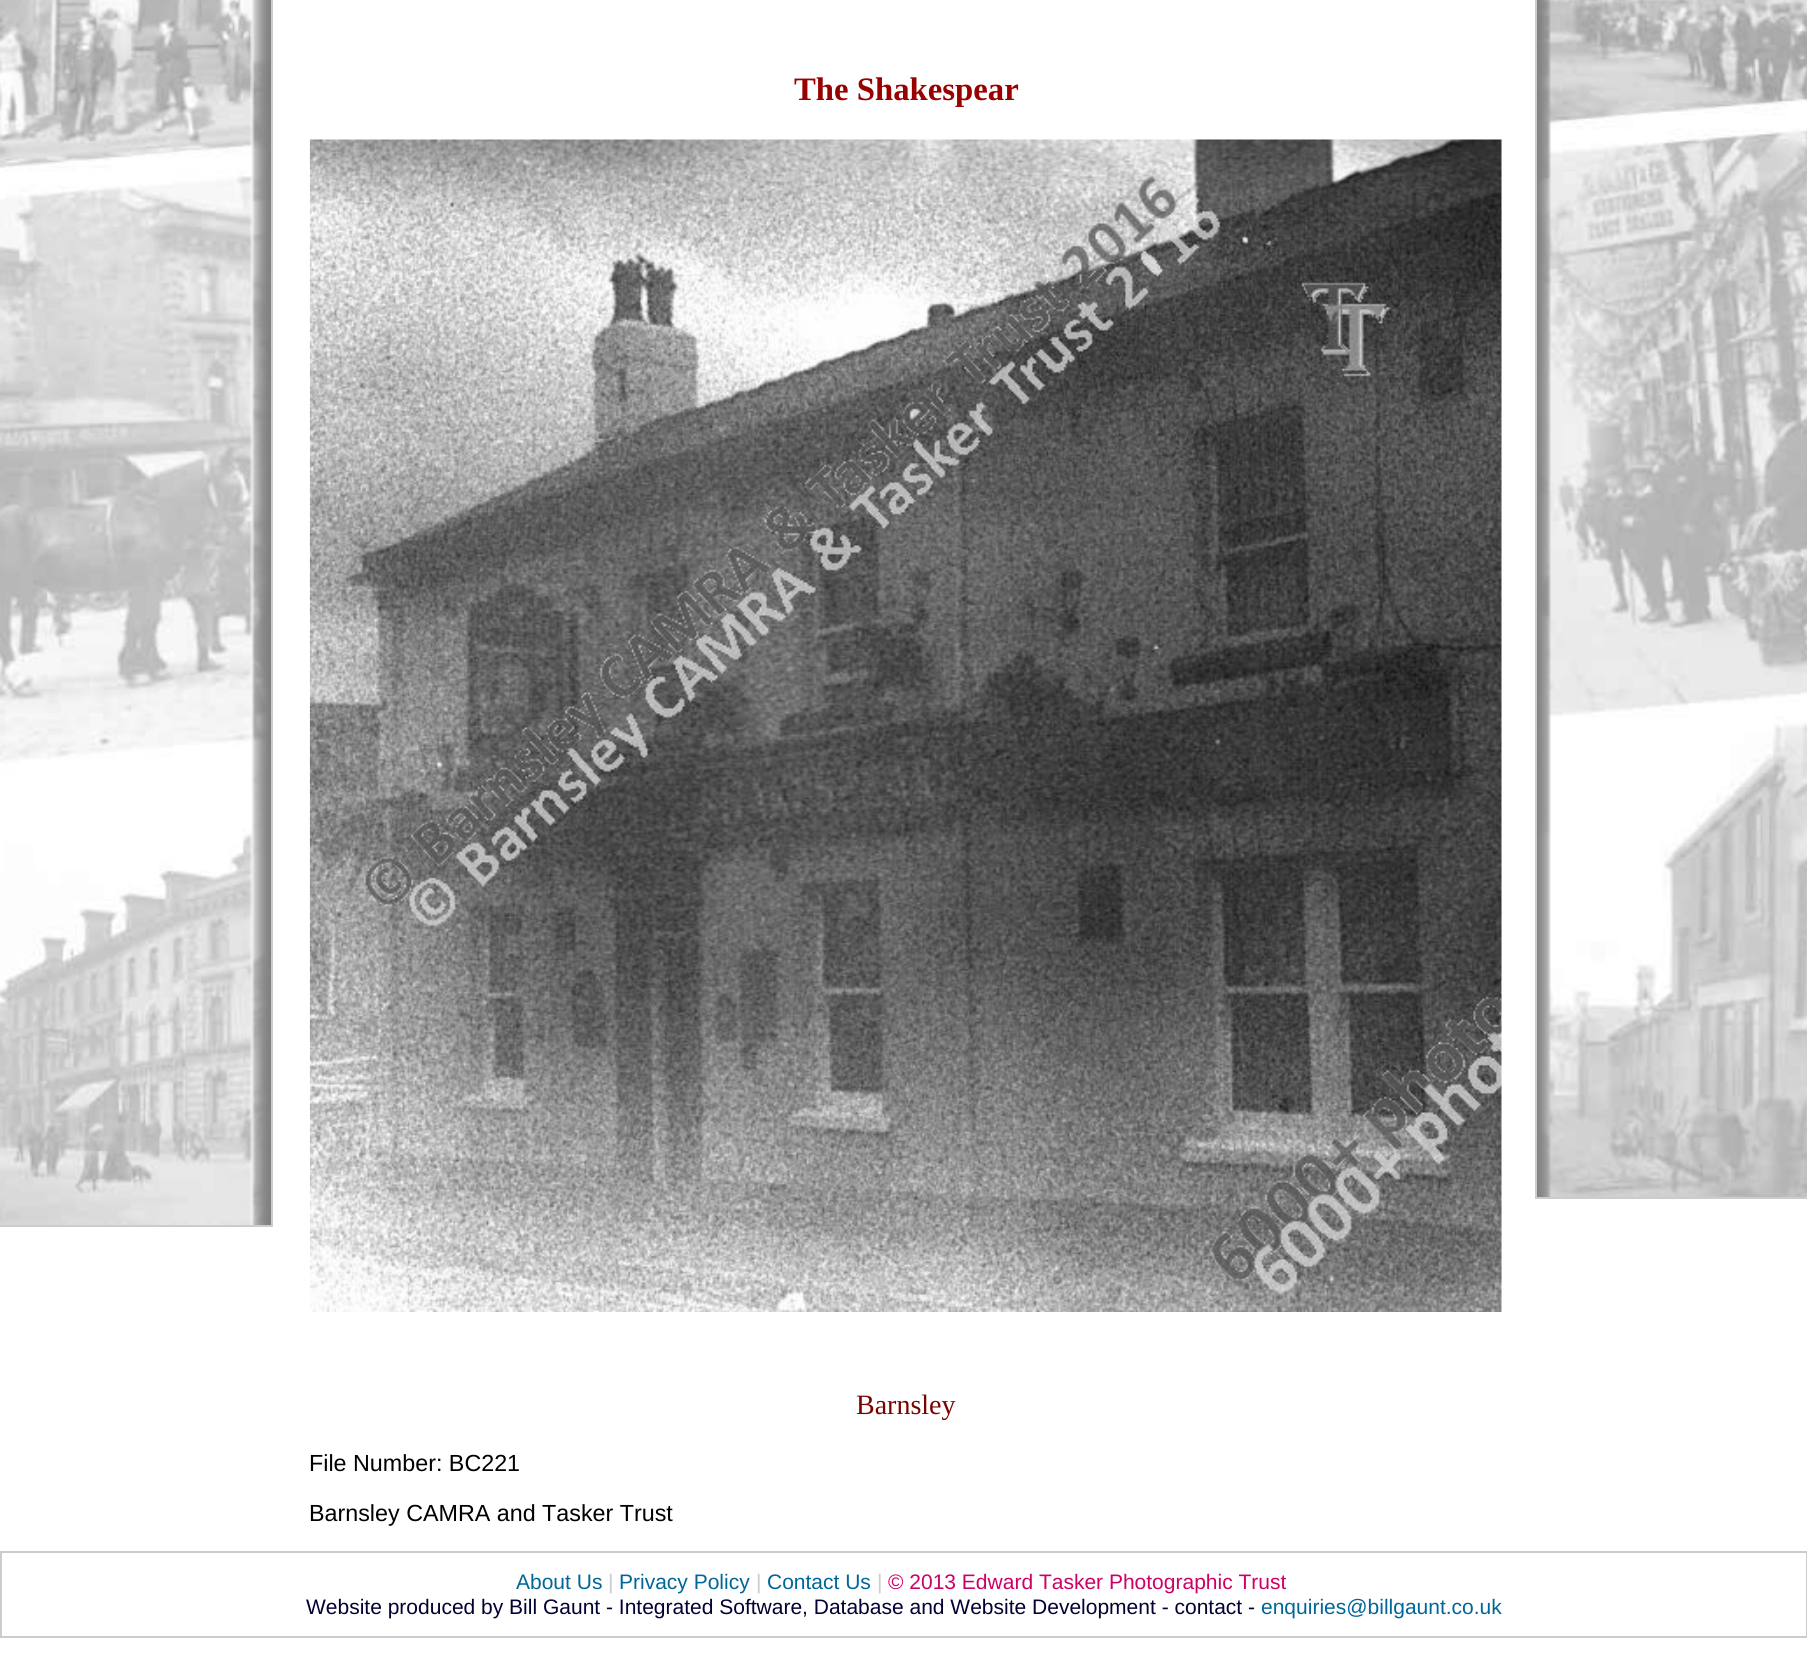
import math
import cairo

surface = cairo.ImageSurface(cairo.FORMAT_RGB24, 1807, 1655)
ctx = cairo.Context(surface)
options = cairo.FontOptions()
options.set_hint_metrics(cairo.HINT_METRICS_OFF)
options.set_hint_style(cairo.HINT_STYLE_NONE)
ctx.set_font_options(options)
ctx.set_miter_limit(4)


def picture(path, x, y, w, h):
    ctx.save()
    ctx.set_source_surface(cairo.ImageSurface.create_from_png(path), x, y)
    ctx.rectangle(x, y, w, h)
    ctx.fill()
    ctx.restore()


ctx.set_source_rgb(1, 1, 1)
ctx.paint()
picture("img1.png", 0, 0, 271, 1225)
ctx.set_source_rgb(0.8, 0.8, 0.8)
ctx.rectangle(271, 0, 2, 1227)
ctx.fill()
ctx.rectangle(0, 1225, 273, 2)
ctx.fill()
ctx.select_font_face("Liberation Serif", cairo.FONT_SLANT_NORMAL, cairo.FONT_WEIGHT_BOLD)
ctx.set_font_size(32.75)
ctx.set_source_rgb(0.6, 0, 0)
ctx.move_to(794, 100)
ctx.show_text("The Shakespear")
picture("img2.png", 309, 139, 1193, 1173)
ctx.select_font_face("Liberation Serif")
ctx.set_font_size(28)
ctx.set_source_rgb(0.475, 0.012, 0)
ctx.move_to(856, 1414)
ctx.show_text("Barnsley")
ctx.select_font_face("Liberation Sans")
ctx.set_font_size(23.3)
ctx.set_source_rgb(0, 0, 0)
ctx.move_to(309, 1471)
ctx.show_text("File Number: BC221")
ctx.move_to(309, 1521)
ctx.show_text("Barnsley CAMRA and Tasker Trust")
picture("img3.png", 1537, 0, 270, 1197)
ctx.set_source_rgb(0.8, 0.8, 0.8)
ctx.rectangle(1535, 1197, 272, 2)
ctx.fill()
ctx.rectangle(1535, 0, 2, 1199)
ctx.fill()
ctx.rectangle(1, 1552, 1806, 85)
ctx.stroke()
ctx.set_font_size(21)
ctx.set_source_rgb(0, 0.4, 0.6)
ctx.move_to(516, 1589)
ctx.show_text("About Us")
ctx.set_source_rgb(0.8, 0.8, 0.8)
ctx.move_to(608, 1589)
ctx.show_text("|")
ctx.set_source_rgb(0, 0.4, 0.6)
ctx.move_to(619, 1589)
ctx.show_text("Privacy Policy")
ctx.set_source_rgb(0.8, 0.8, 0.8)
ctx.move_to(756, 1589)
ctx.show_text("|")
ctx.set_source_rgb(0, 0.4, 0.6)
ctx.move_to(767, 1589)
ctx.show_text("Contact Us")
ctx.set_source_rgb(0.8, 0.8, 0.8)
ctx.move_to(877, 1589)
ctx.show_text("|")
ctx.set_source_rgb(0.808, 0, 0.404)
ctx.move_to(888, 1589)
ctx.show_text("© 2013 Edward Tasker Photographic Trust")
ctx.set_source_rgb(0, 0, 0.2)
ctx.move_to(306, 1614)
ctx.show_text("Website produced by Bill Gaunt - Integrated Software, Database and Website Development - contact -")
ctx.set_source_rgb(0, 0.4, 0.6)
ctx.move_to(1261, 1614)
ctx.show_text("enquiries@billgaunt.co.uk")
surface.write_to_png("page.png")
